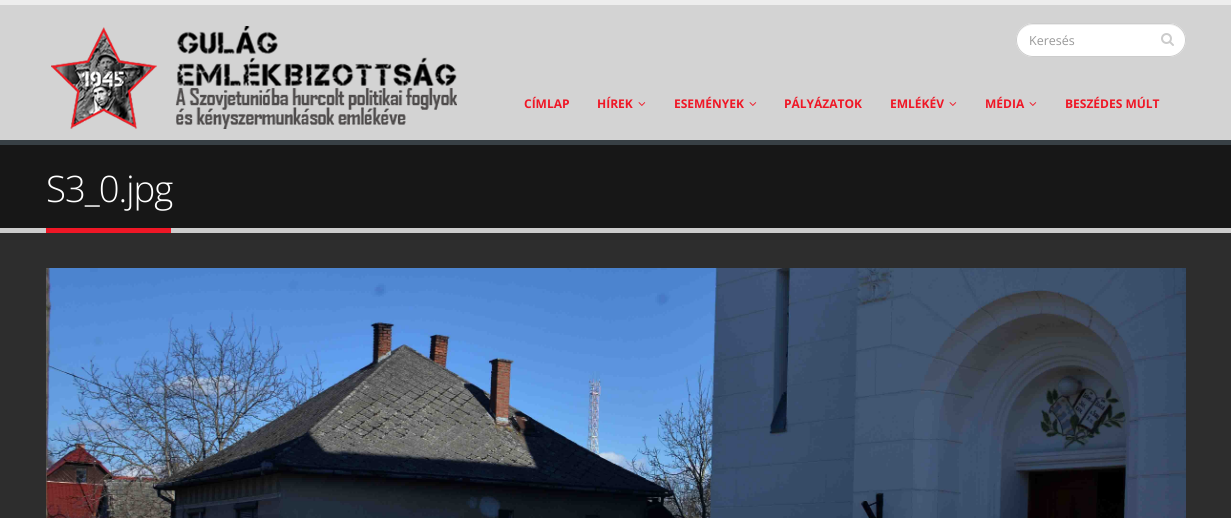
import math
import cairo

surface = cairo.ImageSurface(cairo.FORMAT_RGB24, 1231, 518)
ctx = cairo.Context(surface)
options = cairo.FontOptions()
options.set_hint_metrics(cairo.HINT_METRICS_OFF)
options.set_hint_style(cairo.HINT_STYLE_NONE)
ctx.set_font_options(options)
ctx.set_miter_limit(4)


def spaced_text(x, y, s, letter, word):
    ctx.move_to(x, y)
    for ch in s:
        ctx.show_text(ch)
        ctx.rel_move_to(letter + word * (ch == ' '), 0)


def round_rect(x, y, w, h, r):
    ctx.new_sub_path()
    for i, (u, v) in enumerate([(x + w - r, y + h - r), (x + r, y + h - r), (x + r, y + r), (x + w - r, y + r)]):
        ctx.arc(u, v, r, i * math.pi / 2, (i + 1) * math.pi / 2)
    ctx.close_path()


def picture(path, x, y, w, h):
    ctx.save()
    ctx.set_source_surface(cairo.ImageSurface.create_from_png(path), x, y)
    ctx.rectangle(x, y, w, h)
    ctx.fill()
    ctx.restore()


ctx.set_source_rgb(0.176, 0.176, 0.176)
ctx.paint()
ctx.set_source_rgb(0.827, 0.827, 0.827)
ctx.rectangle(0, 5, 1231, 135)
ctx.fill()
ctx.set_source_rgb(0.929, 0.929, 0.929)
ctx.rectangle(0, 0, 1231, 5)
ctx.fill()
picture("img1.png", 51, 26, 406, 103)
ctx.set_source_rgb(1, 1, 1)
round_rect(1016, 23, 170, 34, 17)
ctx.fill()
ctx.set_source_rgb(0.925, 0.925, 0.925)
ctx.new_path()
ctx.move_to(1033, 25)
ctx.line_to(1169, 25)
ctx.curve_to(1178, 25, 1185, 32, 1185, 40)
ctx.curve_to(1185, 31, 1178, 24, 1169, 24)
ctx.line_to(1033, 24)
ctx.curve_to(1024, 24, 1017, 31, 1017, 40)
ctx.curve_to(1017, 32, 1024, 25, 1033, 25)
ctx.close_path()
ctx.fill()
round_rect(1016.5, 23.5, 169, 33, 16.5)
ctx.set_source_rgb(0.8, 0.8, 0.8)
ctx.set_line_width(1)
ctx.stroke()
ctx.select_font_face("Open Sans")
ctx.set_font_size(12.5)
ctx.set_source_rgb(0.6, 0.6, 0.6)
ctx.move_to(1029, 45)
ctx.show_text("Keresés")
picture("img2.png", 1161, 33, 13, 13)
ctx.select_font_face("Open Sans", cairo.FONT_SLANT_NORMAL, cairo.FONT_WEIGHT_BOLD)
ctx.set_font_size(12)
ctx.set_source_rgb(0.937, 0.09, 0.149)
ctx.move_to(524, 108)
ctx.show_text("CÍMLAP")
ctx.move_to(597, 108)
ctx.show_text("HÍREK")
picture("img3.png", 638, 102, 8, 4)
ctx.move_to(674, 108)
ctx.show_text("ESEMÉNYEK")
picture("img3.png", 749, 102, 8, 4)
ctx.move_to(784, 108)
ctx.show_text("PÁLYÁZATOK")
ctx.move_to(890, 108)
ctx.show_text("EMLÉKÉV")
picture("img3.png", 949, 102, 8, 4)
ctx.move_to(985, 108)
ctx.show_text("MÉDIA")
picture("img3.png", 1029, 102, 8, 4)
ctx.move_to(1065, 108)
ctx.show_text("BESZÉDES MÚLT")
ctx.set_source_rgb(0.09, 0.09, 0.09)
ctx.rectangle(0, 145, 1231, 83)
ctx.fill()
ctx.set_source_rgb(0.22, 0.251, 0.271)
ctx.rectangle(0, 140, 1231, 5)
ctx.fill()
ctx.set_source_rgb(0.8, 0.8, 0.8)
ctx.rectangle(0, 228, 1231, 5)
ctx.fill()
ctx.set_source_rgb(0.937, 0.09, 0.149)
ctx.rectangle(46, 228, 125, 5)
ctx.fill()
ctx.select_font_face("Open Sans Light")
ctx.set_font_size(36.5)
ctx.set_source_rgb(1, 1, 1)
spaced_text(46, 202, "S3_0.jpg", -1, 0)
picture("img4.png", 46, 268, 1140, 250)
surface.write_to_png("page.png")
